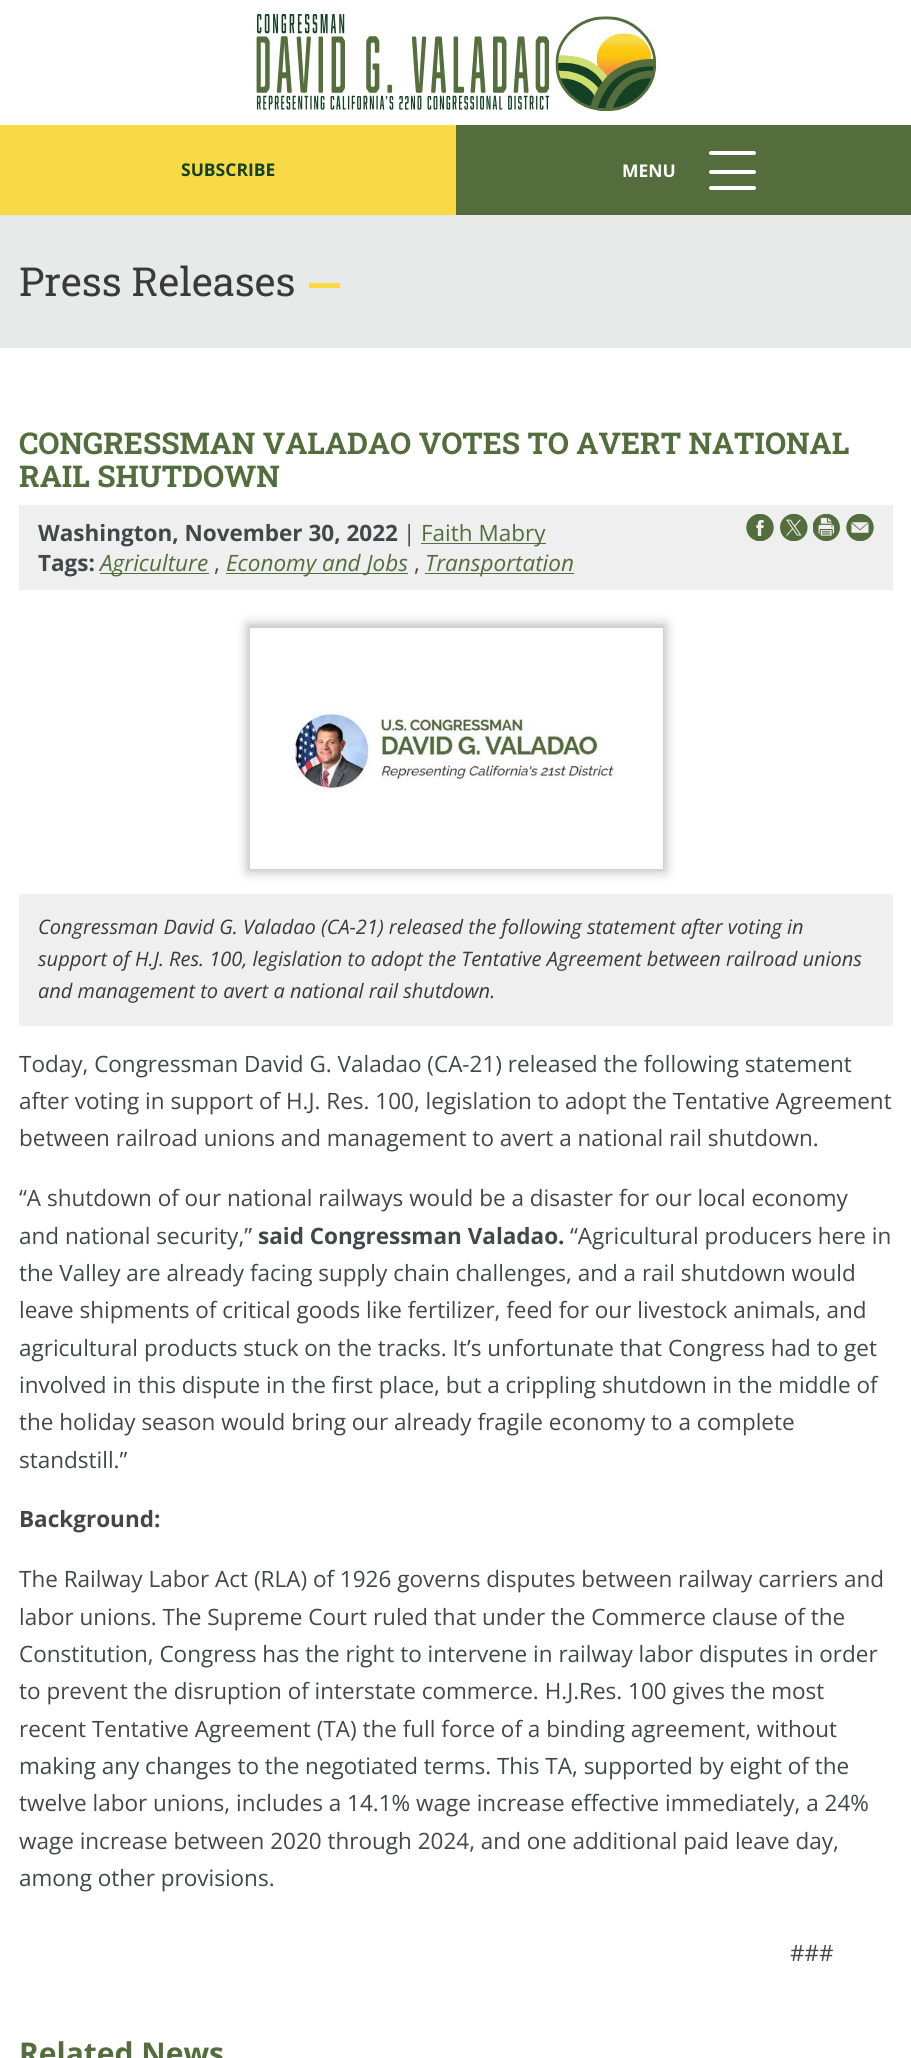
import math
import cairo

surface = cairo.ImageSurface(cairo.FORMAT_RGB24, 911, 2058)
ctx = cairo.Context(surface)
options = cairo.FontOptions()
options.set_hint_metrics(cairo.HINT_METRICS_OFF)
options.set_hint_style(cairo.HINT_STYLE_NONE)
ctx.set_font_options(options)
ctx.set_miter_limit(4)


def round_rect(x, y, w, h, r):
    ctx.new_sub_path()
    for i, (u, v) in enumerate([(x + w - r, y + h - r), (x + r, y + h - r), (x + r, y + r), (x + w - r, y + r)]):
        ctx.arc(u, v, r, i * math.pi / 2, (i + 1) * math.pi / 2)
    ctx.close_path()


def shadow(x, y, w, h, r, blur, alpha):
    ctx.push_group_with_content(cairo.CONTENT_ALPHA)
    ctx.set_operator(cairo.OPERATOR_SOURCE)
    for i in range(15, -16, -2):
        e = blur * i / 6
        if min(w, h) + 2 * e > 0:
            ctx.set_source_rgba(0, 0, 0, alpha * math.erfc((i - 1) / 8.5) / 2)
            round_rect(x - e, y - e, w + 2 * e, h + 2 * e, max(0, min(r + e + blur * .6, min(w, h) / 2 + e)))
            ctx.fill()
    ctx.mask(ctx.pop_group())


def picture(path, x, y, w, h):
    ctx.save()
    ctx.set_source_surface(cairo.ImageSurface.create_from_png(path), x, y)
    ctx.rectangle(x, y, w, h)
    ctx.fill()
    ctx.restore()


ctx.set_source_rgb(1, 1, 1)
ctx.paint()
picture("img1.png", 256, 14, 400, 97)
ctx.set_source_rgb(0.973, 0.855, 0.275)
ctx.rectangle(0, 125, 456, 90)
ctx.fill()
ctx.select_font_face("Open Sans", cairo.FONT_SLANT_NORMAL, cairo.FONT_WEIGHT_BOLD)
ctx.set_font_size(17.5)
ctx.set_source_rgb(0.075, 0.255, 0.141)
ctx.move_to(181, 176)
ctx.show_text("SUBSCRIBE")
ctx.set_source_rgb(0.325, 0.431, 0.235)
ctx.rectangle(456, 125, 455, 90)
ctx.fill()
ctx.set_source_rgb(1, 1, 1)
ctx.move_to(622, 177)
ctx.show_text("MENU")
round_rect(709, 151, 47, 4, 2)
ctx.fill()
round_rect(709, 170, 47, 4, 2)
ctx.fill()
round_rect(709, 186, 47, 4, 2)
ctx.fill()
ctx.set_source_rgb(0.91, 0.914, 0.914)
ctx.rectangle(0, 215, 911, 133)
ctx.fill()
ctx.select_font_face("Roboto Slab")
ctx.set_font_size(40)
ctx.set_source_rgb(0.227, 0.227, 0.227)
ctx.move_to(19, 296)
ctx.show_text("Press Releases")
ctx.set_source_rgb(0.973, 0.855, 0.275)
ctx.rectangle(309, 283, 31, 5)
ctx.fill()
ctx.select_font_face("Roboto Slab", cairo.FONT_SLANT_NORMAL, cairo.FONT_WEIGHT_BOLD)
ctx.set_font_size(30)
ctx.set_source_rgb(0.325, 0.431, 0.235)
ctx.move_to(19, 454)
ctx.show_text("CONGRESSMAN VALADAO VOTES TO AVERT NATIONAL")
ctx.move_to(19, 487)
ctx.show_text("RAIL SHUTDOWN")
ctx.set_source_rgb(0.937, 0.937, 0.937)
ctx.rectangle(19, 505, 874, 85)
ctx.fill()
ctx.select_font_face("Open Sans", cairo.FONT_SLANT_NORMAL, cairo.FONT_WEIGHT_BOLD)
ctx.set_font_size(22.5)
ctx.set_source_rgb(0.263, 0.278, 0.278)
ctx.move_to(38, 541)
ctx.show_text("Washington, November 30, 2022")
ctx.select_font_face("Open Sans")
ctx.move_to(403, 541)
ctx.show_text("|")
ctx.set_source_rgb(0.325, 0.431, 0.235)
ctx.rectangle(421, 543, 125, 1)
ctx.fill()
ctx.move_to(421, 541)
ctx.show_text("Faith Mabry")
picture("img2.png", 746, 514, 28, 27)
picture("img3.png", 780, 514, 28, 27)
picture("img4.png", 813, 514, 27, 27)
picture("img5.png", 846, 514, 28, 27)
ctx.select_font_face("Open Sans", cairo.FONT_SLANT_NORMAL, cairo.FONT_WEIGHT_BOLD)
ctx.set_source_rgb(0.263, 0.278, 0.278)
ctx.move_to(38, 571)
ctx.show_text("Tags:")
ctx.set_source_rgb(0.325, 0.431, 0.235)
ctx.rectangle(100, 573, 109, 1)
ctx.fill()
ctx.select_font_face("Open Sans", cairo.FONT_SLANT_ITALIC)
ctx.move_to(100, 571)
ctx.show_text("Agriculture")
ctx.select_font_face("Open Sans")
ctx.set_source_rgb(0.263, 0.278, 0.278)
ctx.move_to(214, 571)
ctx.show_text(",")
ctx.set_source_rgb(0.325, 0.431, 0.235)
ctx.rectangle(226, 573, 182, 1)
ctx.fill()
ctx.select_font_face("Open Sans", cairo.FONT_SLANT_ITALIC)
ctx.move_to(226, 571)
ctx.show_text("Economy and Jobs")
ctx.select_font_face("Open Sans")
ctx.set_source_rgb(0.263, 0.278, 0.278)
ctx.move_to(414, 571)
ctx.show_text(",")
ctx.set_source_rgb(0.325, 0.431, 0.235)
ctx.rectangle(425, 573, 149, 1)
ctx.fill()
ctx.select_font_face("Open Sans", cairo.FONT_SLANT_ITALIC)
ctx.move_to(425, 571)
ctx.show_text("Transportation")
ctx.save()
ctx.set_fill_rule(cairo.FILL_RULE_EVEN_ODD)
ctx.new_path()
ctx.move_to(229, 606)
ctx.line_to(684, 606)
ctx.line_to(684, 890)
ctx.line_to(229, 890)
ctx.close_path()
ctx.move_to(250, 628)
ctx.line_to(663, 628)
ctx.line_to(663, 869)
ctx.line_to(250, 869)
ctx.close_path()
ctx.clip()
ctx.set_source_rgb(0, 0, 0)
shadow(248, 625, 417, 246, 0, 6, 0.3)
ctx.restore()
ctx.rectangle(256.5, 634.5, 400, 228)
ctx.set_source_rgb(1, 1, 1)
ctx.set_line_width(13)
ctx.stroke()
picture("img6.png", 291, 710, 325, 82)
ctx.set_source_rgb(0.937, 0.937, 0.937)
ctx.rectangle(19, 894, 874, 132)
ctx.fill()
ctx.set_font_size(20)
ctx.set_source_rgb(0.227, 0.227, 0.227)
ctx.move_to(38, 934)
ctx.show_text("Congressman David G. Valadao (CA-21) released the following statement after voting in")
ctx.move_to(38, 966)
ctx.show_text("support of H.J. Res. 100, legislation to adopt the Tentative Agreement between railroad unions")
ctx.move_to(38, 998)
ctx.show_text("and management to avert a national rail shutdown.")
ctx.select_font_face("Open Sans")
ctx.set_font_size(22.5)
ctx.set_source_rgb(0.263, 0.278, 0.278)
ctx.move_to(19, 1072)
ctx.show_text("Today, Congressman David G. Valadao (CA-21) released the following statement")
ctx.move_to(19, 1109)
ctx.show_text("after voting in support of H.J. Res. 100, legislation to adopt the Tentative Agreement")
ctx.move_to(19, 1146)
ctx.show_text("between railroad unions and management to avert a national rail shutdown.")
ctx.move_to(19, 1206)
ctx.show_text("“A shutdown of our national railways would be a disaster for our local economy")
ctx.move_to(19, 1244)
ctx.show_text("and national security,”")
ctx.select_font_face("Open Sans", cairo.FONT_SLANT_NORMAL, cairo.FONT_WEIGHT_BOLD)
ctx.move_to(258, 1244)
ctx.show_text("said Congressman Valadao.")
ctx.select_font_face("Open Sans")
ctx.move_to(570, 1244)
ctx.show_text("“Agricultural producers here in")
ctx.move_to(19, 1281)
ctx.show_text("the Valley are already facing supply chain challenges, and a rail shutdown would")
ctx.move_to(19, 1318)
ctx.show_text("leave shipments of critical goods like fertilizer, feed for our livestock animals, and")
ctx.move_to(19, 1356)
ctx.show_text("agricultural products stuck on the tracks. It’s unfortunate that Congress had to get")
ctx.move_to(19, 1393)
ctx.show_text("involved in this dispute in the first place, but a crippling shutdown in the middle of")
ctx.move_to(19, 1430)
ctx.show_text("the holiday season would bring our already fragile economy to a complete")
ctx.move_to(19, 1468)
ctx.show_text("standstill.”")
ctx.select_font_face("Open Sans", cairo.FONT_SLANT_NORMAL, cairo.FONT_WEIGHT_BOLD)
ctx.move_to(19, 1527)
ctx.show_text("Background:")
ctx.select_font_face("Open Sans")
ctx.move_to(19, 1587)
ctx.show_text("The Railway Labor Act (RLA) of 1926 governs disputes between railway carriers and")
ctx.move_to(19, 1625)
ctx.show_text("labor unions. The Supreme Court ruled that under the Commerce clause of the")
ctx.move_to(19, 1662)
ctx.show_text("Constitution, Congress has the right to intervene in railway labor disputes in order")
ctx.move_to(19, 1699)
ctx.show_text("to prevent the disruption of interstate commerce. H.J.Res. 100 gives the most")
ctx.move_to(19, 1737)
ctx.show_text("recent Tentative Agreement (TA) the full force of a binding agreement, without")
ctx.move_to(19, 1774)
ctx.show_text("making any changes to the negotiated terms. This TA, supported by eight of the")
ctx.move_to(19, 1811)
ctx.show_text("twelve labor unions, includes a 14.1% wage increase effective immediately, a 24%")
ctx.move_to(19, 1849)
ctx.show_text("wage increase between 2020 through 2024, and one additional paid leave day,")
ctx.move_to(19, 1886)
ctx.show_text("among other provisions.")
ctx.move_to(790, 1961)
ctx.show_text("###")
ctx.select_font_face("Open Sans", cairo.FONT_SLANT_NORMAL, cairo.FONT_WEIGHT_BOLD)
ctx.set_font_size(30)
ctx.set_source_rgb(0.325, 0.431, 0.235)
ctx.move_to(19, 2064)
ctx.show_text("Related News")
surface.write_to_png("page.png")
